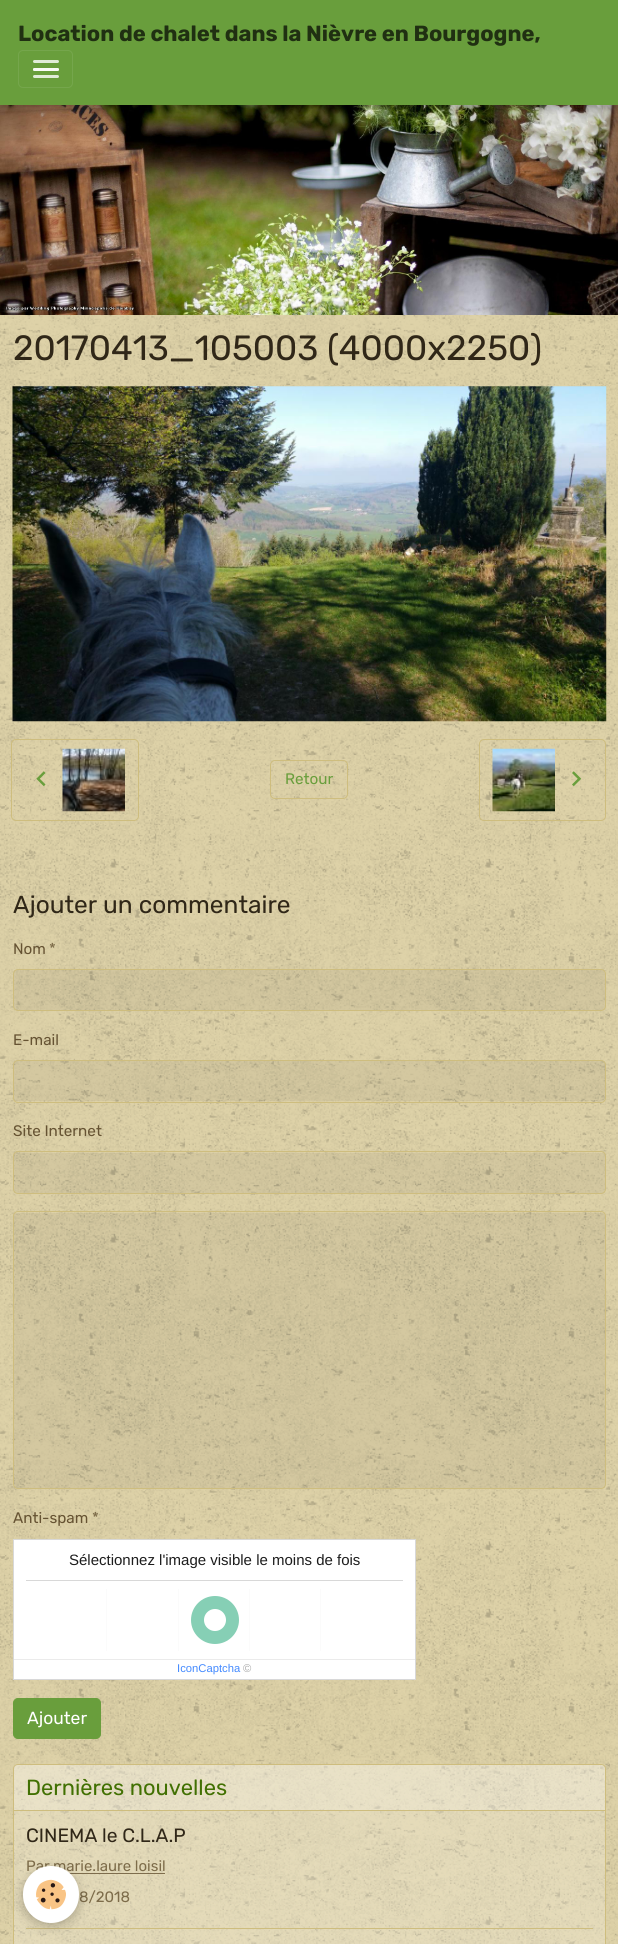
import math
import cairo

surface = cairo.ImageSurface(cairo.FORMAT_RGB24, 618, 1944)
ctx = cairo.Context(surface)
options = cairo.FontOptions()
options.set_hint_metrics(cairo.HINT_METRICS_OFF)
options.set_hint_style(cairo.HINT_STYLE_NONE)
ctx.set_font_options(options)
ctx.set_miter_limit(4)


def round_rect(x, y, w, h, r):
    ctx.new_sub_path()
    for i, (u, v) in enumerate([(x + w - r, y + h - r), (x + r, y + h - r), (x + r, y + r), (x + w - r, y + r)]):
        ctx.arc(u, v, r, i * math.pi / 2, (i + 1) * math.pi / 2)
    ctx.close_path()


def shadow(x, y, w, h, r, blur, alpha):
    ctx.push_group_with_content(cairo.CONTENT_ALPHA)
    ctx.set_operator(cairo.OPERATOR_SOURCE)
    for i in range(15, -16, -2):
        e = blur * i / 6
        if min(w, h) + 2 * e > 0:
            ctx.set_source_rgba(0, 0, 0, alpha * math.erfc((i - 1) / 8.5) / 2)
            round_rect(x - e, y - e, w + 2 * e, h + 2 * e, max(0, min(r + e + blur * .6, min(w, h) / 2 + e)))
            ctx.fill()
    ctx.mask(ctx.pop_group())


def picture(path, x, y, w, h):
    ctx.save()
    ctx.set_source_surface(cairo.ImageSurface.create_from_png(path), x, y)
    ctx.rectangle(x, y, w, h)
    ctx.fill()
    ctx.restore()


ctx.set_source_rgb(0.871, 0.824, 0.659)
ctx.paint()
picture("img1.png", 0, 315, 618, 1629)
picture("img2.png", 0, 105, 618, 210)
ctx.set_source_rgb(0, 0, 0)
shadow(0, 4, 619, 105, 0, 4.5, 0.2)
ctx.set_source_rgb(0.412, 0.62, 0.235)
ctx.rectangle(0, 0, 618, 105)
ctx.fill()
ctx.select_font_face("Rubik", cairo.FONT_SLANT_NORMAL, cairo.FONT_WEIGHT_BOLD)
ctx.set_font_size(21.9)
ctx.set_source_rgb(0.125, 0.188, 0.071)
ctx.move_to(18, 41)
ctx.show_text("Location de chalet dans la Nièvre en Bourgogne,")
round_rect(18.5, 50.5, 54, 37, 4.5)
ctx.set_source_rgb(0.459, 0.651, 0.298)
ctx.set_line_width(1)
ctx.stroke()
ctx.set_source_rgb(0.882, 0.925, 0.847)
round_rect(33, 60, 26, 3, 1.5)
ctx.fill()
round_rect(33, 68, 26, 3, 1.5)
ctx.fill()
ctx.set_source_rgba(1, 1, 1, 0.8)
round_rect(33, 68, 26, 3, 1.5)
ctx.fill()
ctx.set_source_rgb(0.882, 0.925, 0.847)
round_rect(33, 75, 26, 3, 1.5)
ctx.fill()
ctx.select_font_face("Rubik")
ctx.set_font_size(35)
ctx.set_source_rgb(0.188, 0.153, 0.094)
ctx.move_to(13, 360)
ctx.show_text("20170413_105003 (4000x2250)")
picture("img3.png", 12, 386, 595, 336)
round_rect(11.5, 739.5, 127, 81, 4.5)
ctx.set_source_rgb(0.808, 0.741, 0.494)
ctx.stroke()
picture("img4.png", 36, 771, 10, 16)
picture("img5.png", 62, 748, 63, 64)
round_rect(270.5, 760.5, 77, 38, 4.5)
ctx.stroke()
ctx.set_font_size(15.25)
ctx.set_source_rgb(0.412, 0.62, 0.235)
ctx.move_to(285, 784)
ctx.show_text("Retour")
round_rect(479.5, 739.5, 126, 81, 4.5)
ctx.set_source_rgb(0.808, 0.741, 0.494)
ctx.stroke()
picture("img6.png", 492, 748, 63, 64)
picture("img7.png", 572, 771, 10, 16)
ctx.set_font_size(24.5)
ctx.set_source_rgb(0.188, 0.153, 0.094)
ctx.move_to(13, 913)
ctx.show_text("Ajouter un commentaire")
ctx.set_font_size(15.25)
ctx.set_source_rgb(0.4, 0.325, 0.2)
ctx.move_to(13, 954)
ctx.show_text("Nom")
ctx.set_source_rgb(0.49, 0.424, 0.29)
ctx.move_to(49, 954)
ctx.show_text("*")
ctx.set_source_rgba(0, 0, 0, 0.05)
ctx.rectangle(14, 970, 591, 40)
ctx.fill()
round_rect(13.5, 969.5, 592, 41, 4.5)
ctx.set_source_rgb(0.808, 0.741, 0.494)
ctx.stroke()
ctx.set_source_rgb(0.4, 0.325, 0.2)
ctx.move_to(13, 1045)
ctx.show_text("E-mail")
ctx.set_source_rgba(0, 0, 0, 0.05)
ctx.rectangle(14, 1061, 591, 40)
ctx.fill()
round_rect(13.5, 1060.5, 592, 42, 4.5)
ctx.set_source_rgb(0.808, 0.741, 0.494)
ctx.stroke()
ctx.set_source_rgb(0.4, 0.325, 0.2)
ctx.move_to(13, 1136)
ctx.show_text("Site Internet")
ctx.set_source_rgba(0, 0, 0, 0.05)
ctx.rectangle(14, 1153, 591, 40)
ctx.fill()
round_rect(13.5, 1151.5, 592, 42, 4.5)
ctx.set_source_rgb(0.808, 0.741, 0.494)
ctx.stroke()
ctx.set_source_rgba(0, 0, 0, 0.05)
ctx.rectangle(14, 1213, 591, 275)
ctx.fill()
round_rect(13.5, 1211.5, 592, 277, 4.5)
ctx.set_source_rgb(0.808, 0.741, 0.494)
ctx.stroke()
ctx.set_source_rgb(0.4, 0.325, 0.2)
ctx.move_to(13, 1523)
ctx.show_text("Anti-spam")
ctx.set_source_rgb(0.49, 0.424, 0.29)
ctx.move_to(92, 1523)
ctx.show_text("*")
ctx.set_source_rgb(1, 1, 1)
ctx.rectangle(13.5, 1539.5, 402, 140)
ctx.fill_preserve()
ctx.set_source_rgb(0.847, 0.847, 0.847)
ctx.stroke()
ctx.rectangle(26, 1580, 377, 1)
ctx.fill()
ctx.select_font_face("Liberation Sans")
ctx.set_font_size(15)
ctx.set_source_rgb(0.114, 0.114, 0.114)
ctx.move_to(69, 1565)
ctx.show_text("Sélectionnez l'image visible le moins de fois")
ctx.set_source_rgb(0.984, 0.984, 0.984)
ctx.rectangle(106, 1589, 1, 62)
ctx.fill()
ctx.rectangle(178, 1589, 1, 62)
ctx.fill()
ctx.arc(215, 1620, 17.5, 0, 2 * math.pi)
ctx.set_source_rgb(0.525, 0.812, 0.71)
ctx.set_line_width(13)
ctx.stroke()
ctx.set_source_rgb(0.984, 0.984, 0.984)
ctx.rectangle(249, 1589, 1, 62)
ctx.fill()
ctx.rectangle(320, 1589, 1, 62)
ctx.fill()
ctx.set_source_rgb(0.918, 0.918, 0.918)
ctx.rectangle(14, 1659, 401, 1)
ctx.fill()
ctx.set_font_size(11.25)
ctx.set_source_rgb(0.267, 0.541, 1)
ctx.move_to(177, 1672)
ctx.show_text("IconCaptcha")
ctx.set_source_rgb(0.655, 0.655, 0.655)
ctx.move_to(243, 1672)
ctx.show_text("©")
ctx.set_source_rgb(0.412, 0.62, 0.235)
round_rect(13.5, 1698.5, 87, 40, 4.5)
ctx.fill_preserve()
ctx.set_line_width(1)
ctx.stroke()
ctx.select_font_face("Rubik")
ctx.set_font_size(17.5)
ctx.set_source_rgb(1, 1, 1)
ctx.move_to(27, 1724)
ctx.show_text("Ajouter")
ctx.set_source_rgba(1, 1, 1, 0.2)
round_rect(13.5, 1764.5, 592, 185, 4.5)
ctx.fill_preserve()
ctx.set_source_rgb(0.808, 0.741, 0.494)
ctx.stroke()
ctx.set_source_rgba(1, 1, 1, 0.2)
ctx.new_path()
ctx.move_to(17, 1765)
ctx.line_to(602, 1765)
ctx.curve_to(603.5, 1765, 605, 1766.5, 605, 1768)
ctx.line_to(605, 1811)
ctx.line_to(14, 1811)
ctx.line_to(14, 1768)
ctx.curve_to(14, 1766.5, 15.5, 1765, 17, 1765)
ctx.close_path()
ctx.fill()
ctx.set_source_rgb(0.808, 0.741, 0.494)
ctx.rectangle(14, 1810, 591, 1)
ctx.fill()
ctx.set_font_size(21.9)
ctx.set_source_rgb(0.255, 0.439, 0.008)
ctx.move_to(26, 1795)
ctx.show_text("Dernières nouvelles")
ctx.set_font_size(19.25)
ctx.set_source_rgb(0.188, 0.153, 0.094)
ctx.move_to(26, 1842)
ctx.show_text("CINEMA le C.L.A.P")
ctx.set_font_size(15)
ctx.set_source_rgb(0.49, 0.424, 0.29)
ctx.move_to(26, 1871)
ctx.show_text("Par")
ctx.move_to(53, 1871)
ctx.show_text("marie.laure loisil")
ctx.set_source_rgba(0.4, 0.325, 0.2, 0.8)
ctx.rectangle(69, 1873, 96, 1)
ctx.fill()
ctx.set_source_rgb(0.49, 0.424, 0.29)
ctx.move_to(79, 1902)
ctx.show_text("8/2018")
ctx.set_source_rgb(0.808, 0.741, 0.494)
ctx.rectangle(26, 1928, 567, 1)
ctx.fill()
ctx.set_source_rgb(0, 0, 0)
shadow(23, 1870, 56, 56, 28, 6, 0.24)
ctx.set_source_rgb(1, 1, 1)
round_rect(23, 1866, 56, 57, 28)
ctx.fill()
picture("img8.png", 36, 1879, 30, 31)
surface.write_to_png("page.png")
